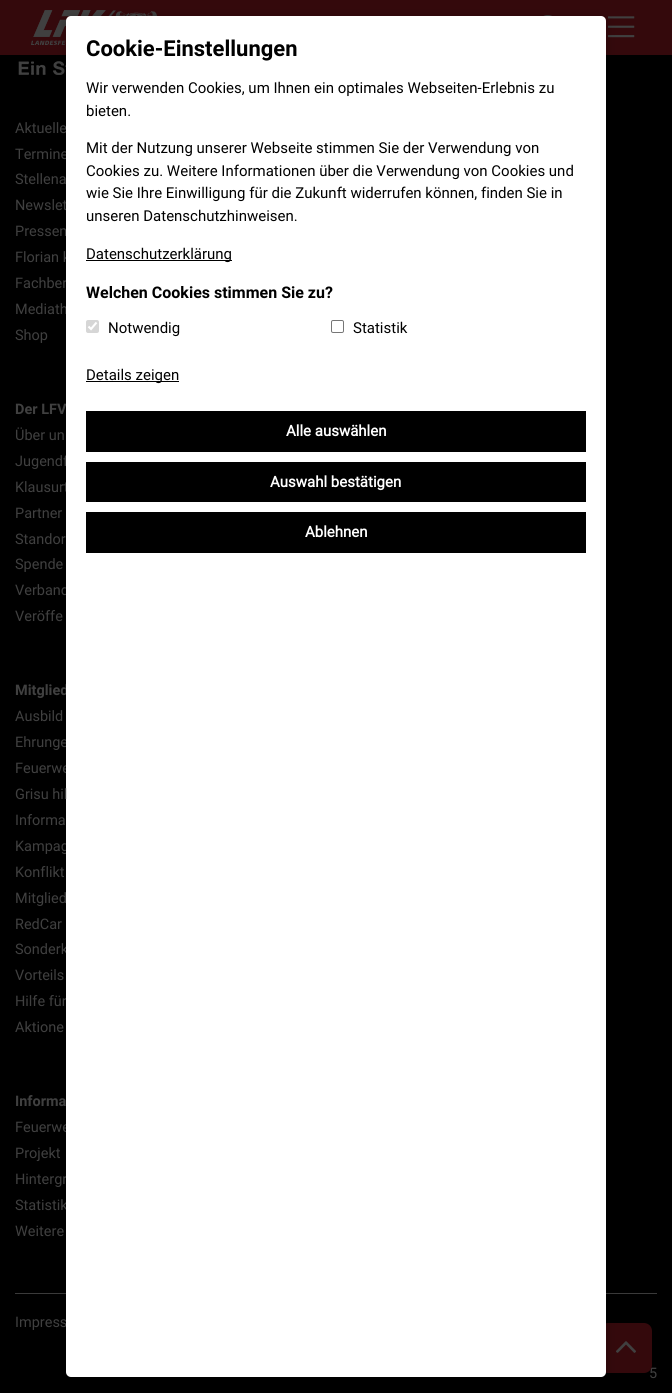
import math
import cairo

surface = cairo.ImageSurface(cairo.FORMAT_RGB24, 672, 1393)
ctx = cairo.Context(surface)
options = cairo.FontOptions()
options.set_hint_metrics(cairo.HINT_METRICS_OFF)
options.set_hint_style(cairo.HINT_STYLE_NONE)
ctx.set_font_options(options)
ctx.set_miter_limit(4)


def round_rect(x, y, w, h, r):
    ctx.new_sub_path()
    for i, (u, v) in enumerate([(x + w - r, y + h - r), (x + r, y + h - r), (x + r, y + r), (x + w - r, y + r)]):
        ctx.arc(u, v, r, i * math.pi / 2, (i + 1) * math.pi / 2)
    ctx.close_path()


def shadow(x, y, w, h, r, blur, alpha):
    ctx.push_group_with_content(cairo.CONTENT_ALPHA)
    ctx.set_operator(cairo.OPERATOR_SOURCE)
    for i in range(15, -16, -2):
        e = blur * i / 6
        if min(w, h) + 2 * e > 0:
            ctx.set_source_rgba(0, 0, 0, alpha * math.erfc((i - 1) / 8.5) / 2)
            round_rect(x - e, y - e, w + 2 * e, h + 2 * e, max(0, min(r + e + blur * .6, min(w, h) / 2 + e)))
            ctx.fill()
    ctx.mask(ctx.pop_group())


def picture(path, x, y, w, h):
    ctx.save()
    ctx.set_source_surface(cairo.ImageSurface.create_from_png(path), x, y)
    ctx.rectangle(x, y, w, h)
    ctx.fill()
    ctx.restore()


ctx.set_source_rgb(0, 0, 0)
ctx.paint()
ctx.set_source_rgb(0.204, 0.039, 0.047)
ctx.rectangle(0, 0, 672, 55)
ctx.fill()
picture("img1.png", 31, 10, 127, 35)
picture("img2.png", 543, 15, 9, 1)
picture("img3.png", 608, 16, 27, 22)
picture("img4.png", 18, 61, 48, 14)
ctx.set_source_rgb(0.227, 0.227, 0.227)
ctx.rectangle(15, 1293, 642, 1)
ctx.fill()
ctx.select_font_face("Roboto")
ctx.set_font_size(14.5)
ctx.set_source_rgb(0.251, 0.251, 0.251)
ctx.move_to(649, 1378)
ctx.show_text("5")
ctx.set_source_rgb(0.204, 0.039, 0.047)
round_rect(600, 1323, 52, 50, 8)
ctx.fill()
picture("img5.png", 616, 1341, 20, 12)
ctx.set_source_rgb(0, 0, 0)
shadow(66, 18, 540, 1361, 5, 5, 0.25)
ctx.set_source_rgb(0.251, 0.251, 0.251)
ctx.move_to(15, 133)
ctx.show_text("Aktuelle")
ctx.move_to(15, 159)
ctx.show_text("Termine")
ctx.move_to(15, 210)
ctx.show_text("Newslet")
ctx.move_to(15, 236)
ctx.show_text("Pressem")
ctx.move_to(15, 262)
ctx.show_text("Florian k")
ctx.move_to(15, 288)
ctx.show_text("Fachber")
ctx.move_to(15, 314)
ctx.show_text("Mediath")
ctx.select_font_face("Roboto", cairo.FONT_SLANT_NORMAL, cairo.FONT_WEIGHT_BOLD)
ctx.move_to(15, 414)
ctx.show_text("Der LFV")
ctx.select_font_face("Roboto")
ctx.move_to(15, 466)
ctx.show_text("Jugendf")
ctx.move_to(15, 492)
ctx.show_text("Klausurt")
ctx.move_to(15, 595)
ctx.show_text("Verband")
ctx.select_font_face("Roboto", cairo.FONT_SLANT_NORMAL, cairo.FONT_WEIGHT_BOLD)
ctx.move_to(15, 695)
ctx.show_text("Mitglied")
ctx.select_font_face("Roboto")
ctx.move_to(15, 747)
ctx.show_text("Ehrunge")
ctx.move_to(15, 773)
ctx.show_text("Feuerwe")
ctx.move_to(15, 851)
ctx.show_text("Kampag")
ctx.move_to(15, 954)
ctx.show_text("Sonderk")
ctx.move_to(15, 1006)
ctx.show_text("Hilfe für")
ctx.move_to(15, 1132)
ctx.show_text("Feuerwe")
ctx.move_to(15, 1184)
ctx.show_text("Hintergr")
ctx.move_to(15, 1210)
ctx.show_text("Statistik")
ctx.move_to(15, 1327)
ctx.show_text("Impress")
ctx.set_source_rgb(1, 1, 1)
round_rect(66, 16, 540, 1361, 5)
ctx.fill()
ctx.select_font_face("Roboto", cairo.FONT_SLANT_NORMAL, cairo.FONT_WEIGHT_BOLD)
ctx.set_font_size(22)
ctx.set_source_rgb(0, 0, 0)
ctx.move_to(86, 56)
ctx.show_text("Cookie-Einstellungen")
ctx.select_font_face("Roboto")
ctx.set_font_size(15)
ctx.move_to(86, 93)
ctx.show_text("Wir verwenden Cookies, um Ihnen ein optimales Webseiten-Erlebnis zu")
ctx.move_to(86, 116)
ctx.show_text("bieten.")
ctx.move_to(86, 153)
ctx.show_text("Mit der Nutzung unserer Webseite stimmen Sie der Verwendung von")
ctx.move_to(86, 176)
ctx.show_text("Cookies zu. Weitere Informationen über die Verwendung von Cookies und")
ctx.move_to(86, 198)
ctx.show_text("wie Sie Ihre Einwilligung für die Zukunft widerrufen können, finden Sie in")
ctx.move_to(86, 221)
ctx.show_text("unseren Datenschutzhinweisen.")
ctx.rectangle(86, 260, 146, 1)
ctx.fill()
ctx.move_to(86, 259)
ctx.show_text("Datenschutzerklärung")
ctx.select_font_face("Roboto", cairo.FONT_SLANT_NORMAL, cairo.FONT_WEIGHT_BOLD)
ctx.set_font_size(16)
ctx.move_to(86, 298)
ctx.show_text("Welchen Cookies stimmen Sie zu?")
ctx.set_source_rgb(0.839, 0.839, 0.839)
round_rect(86, 320, 13, 13, 2)
ctx.fill()
ctx.new_path()
ctx.move_to(88.5, 326.5)
ctx.line_to(91, 329)
ctx.line_to(96.5, 322.5)
ctx.set_source_rgb(1, 1, 1)
ctx.set_line_width(2.1)
ctx.stroke()
ctx.select_font_face("Roboto")
ctx.set_font_size(15)
ctx.set_source_rgb(0, 0, 0)
ctx.move_to(108, 333)
ctx.show_text("Notwendig")
round_rect(331.5, 320.5, 12, 12, 1.5)
ctx.set_source_rgb(0.463, 0.463, 0.463)
ctx.set_line_width(1)
ctx.stroke()
ctx.set_source_rgb(0, 0, 0)
ctx.move_to(353, 333)
ctx.show_text("Statistik")
ctx.rectangle(86, 381, 93, 1)
ctx.fill()
ctx.move_to(86, 380)
ctx.show_text("Details zeigen")
ctx.rectangle(86, 411, 500, 41)
ctx.fill()
ctx.select_font_face("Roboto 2", cairo.FONT_SLANT_NORMAL, cairo.FONT_WEIGHT_BOLD)
ctx.set_source_rgb(1, 1, 1)
ctx.move_to(286, 436)
ctx.show_text("Alle auswählen")
ctx.set_source_rgb(0, 0, 0)
ctx.rectangle(86, 462, 500, 40)
ctx.fill()
ctx.set_source_rgb(1, 1, 1)
ctx.move_to(270, 487)
ctx.show_text("Auswahl bestätigen")
ctx.set_source_rgb(0, 0, 0)
ctx.rectangle(86, 512, 500, 41)
ctx.fill()
ctx.set_source_rgb(1, 1, 1)
ctx.move_to(305, 537)
ctx.show_text("Ablehnen")
ctx.select_font_face("Roboto")
ctx.set_font_size(14.5)
ctx.set_source_rgb(0.251, 0.251, 0.251)
ctx.move_to(15, 184)
ctx.show_text("Stellena")
ctx.move_to(15, 340)
ctx.show_text("Shop")
ctx.move_to(15, 440)
ctx.show_text("Über un")
ctx.move_to(15, 518)
ctx.show_text("Partner")
ctx.move_to(15, 544)
ctx.show_text("Standor")
ctx.move_to(15, 569)
ctx.show_text("Spende")
ctx.move_to(15, 621)
ctx.show_text("Veröffe")
ctx.move_to(15, 721)
ctx.show_text("Ausbild")
ctx.move_to(15, 799)
ctx.show_text("Grisu hil")
ctx.move_to(15, 825)
ctx.show_text("Informa")
ctx.move_to(15, 877)
ctx.show_text("Konflikt")
ctx.move_to(15, 903)
ctx.show_text("Mitglied")
ctx.move_to(15, 929)
ctx.show_text("RedCar")
ctx.move_to(15, 980)
ctx.show_text("Vorteils")
ctx.move_to(15, 1032)
ctx.show_text("Aktione")
ctx.select_font_face("Roboto", cairo.FONT_SLANT_NORMAL, cairo.FONT_WEIGHT_BOLD)
ctx.move_to(15, 1106)
ctx.show_text("Informa")
ctx.select_font_face("Roboto")
ctx.move_to(15, 1158)
ctx.show_text("Projekt")
ctx.move_to(15, 1236)
ctx.show_text("Weitere")
surface.write_to_png("page.png")
